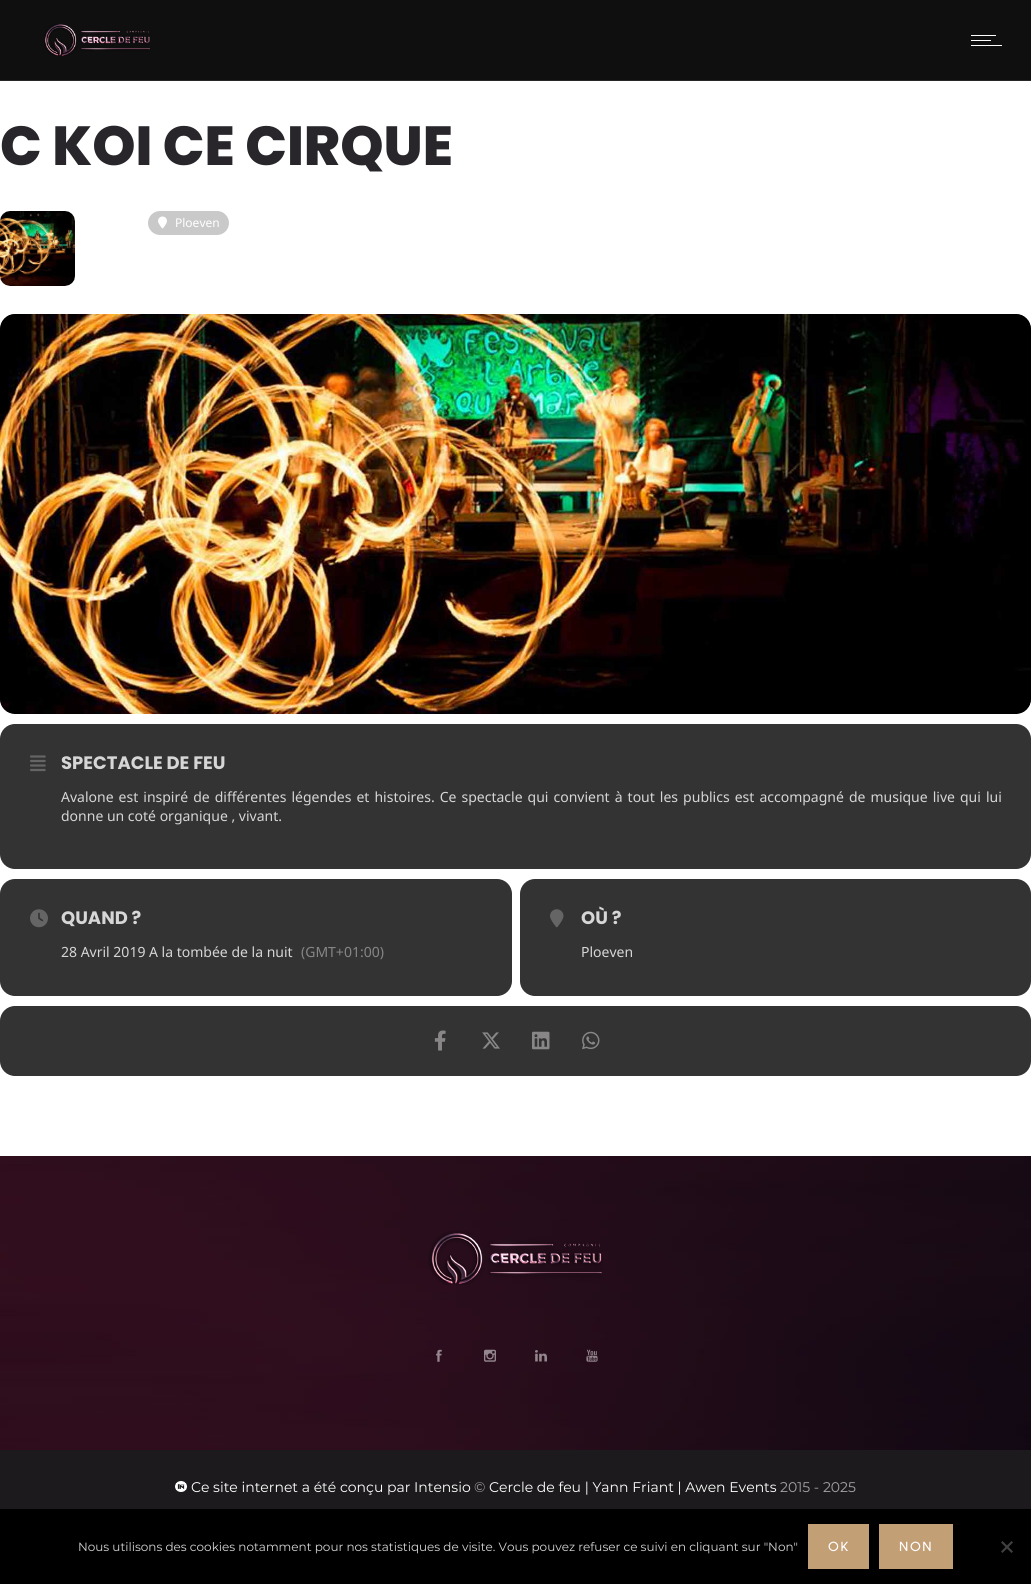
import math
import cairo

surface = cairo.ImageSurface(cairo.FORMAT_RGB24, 1031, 1584)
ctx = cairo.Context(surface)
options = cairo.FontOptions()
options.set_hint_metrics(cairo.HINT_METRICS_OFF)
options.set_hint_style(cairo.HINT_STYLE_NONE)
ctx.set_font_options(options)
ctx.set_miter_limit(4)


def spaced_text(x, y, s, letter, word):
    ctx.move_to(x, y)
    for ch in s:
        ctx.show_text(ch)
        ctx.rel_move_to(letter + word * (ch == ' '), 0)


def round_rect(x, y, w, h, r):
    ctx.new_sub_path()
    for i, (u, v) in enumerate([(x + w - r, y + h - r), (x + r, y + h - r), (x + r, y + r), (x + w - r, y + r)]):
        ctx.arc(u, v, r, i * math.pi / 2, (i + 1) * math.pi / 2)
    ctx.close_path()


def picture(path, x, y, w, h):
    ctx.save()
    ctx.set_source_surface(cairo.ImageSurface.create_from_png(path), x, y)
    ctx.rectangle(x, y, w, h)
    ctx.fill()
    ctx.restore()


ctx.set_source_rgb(1, 1, 1)
ctx.paint()
ctx.set_source_rgb(0.059, 0.059, 0.059)
ctx.rectangle(0, 0, 1031, 80)
ctx.fill()
ctx.set_source_rgb(0.153, 0.153, 0.153)
ctx.rectangle(0, 80, 1031, 1)
ctx.fill()
picture("img1.png", 44, 24, 106, 32)
ctx.set_source_rgb(1, 1, 1)
ctx.rectangle(971, 35, 25, 1)
ctx.fill()
ctx.rectangle(971, 40, 20, 1)
ctx.fill()
ctx.rectangle(971, 45, 31, 1)
ctx.fill()
ctx.select_font_face("Poppins ExtraBold")
ctx.set_font_size(55)
ctx.set_source_rgb(0.157, 0.149, 0.169)
ctx.move_to(0, 165)
ctx.show_text("C KOI CE CIRQUE")
picture("img2.png", 0, 211, 75, 75)
ctx.set_source_rgb(0.788, 0.788, 0.788)
round_rect(148, 211, 81, 24, 12)
ctx.fill()
picture("img3.png", 158, 216, 9, 13)
ctx.select_font_face("Noto Sans")
ctx.set_font_size(12)
ctx.set_source_rgb(1, 1, 1)
ctx.move_to(175, 227)
ctx.show_text("Ploeven")
ctx.set_source_rgb(0.2, 0.2, 0.2)
round_rect(0, 314, 1031, 400, 15)
ctx.fill()
picture("img4.png", 0, 314, 1031, 400)
round_rect(0, 724, 1031, 145, 15)
ctx.fill()
picture("img5.png", 30, 755, 16, 17)
ctx.select_font_face("Poppins", cairo.FONT_SLANT_NORMAL, cairo.FONT_WEIGHT_BOLD)
ctx.set_font_size(18)
ctx.set_source_rgb(0.839, 0.839, 0.839)
ctx.move_to(61, 769)
ctx.show_text("SPECTACLE DE FEU")
ctx.select_font_face("Noto Sans")
ctx.set_font_size(14)
spaced_text(61, 802, "Avalone est inspiré de différentes légendes et histoires. Ce spectacle qui convient à tout les publics est accompagné de musique live qui lui", 0, 1.4)
ctx.move_to(61, 821)
ctx.show_text("donne un coté organique , vivant.")
ctx.set_source_rgb(0.2, 0.2, 0.2)
round_rect(0, 879, 512, 117, 15)
ctx.fill()
picture("img6.png", 30, 909, 18, 19)
ctx.select_font_face("Poppins", cairo.FONT_SLANT_NORMAL, cairo.FONT_WEIGHT_BOLD)
ctx.set_font_size(18)
ctx.set_source_rgb(0.839, 0.839, 0.839)
ctx.move_to(61, 924)
ctx.show_text("QUAND ?")
ctx.select_font_face("Noto Sans")
ctx.set_font_size(14)
ctx.move_to(61, 957)
ctx.show_text("28 Avril 2019 A la tombée de la nuit")
ctx.set_source_rgb(0.525, 0.525, 0.525)
ctx.move_to(301, 957)
ctx.show_text("(GMT+01:00)")
ctx.set_source_rgb(0.2, 0.2, 0.2)
round_rect(520, 879, 511, 117, 15)
ctx.fill()
picture("img7.png", 550, 909, 14, 19)
ctx.select_font_face("Poppins", cairo.FONT_SLANT_NORMAL, cairo.FONT_WEIGHT_BOLD)
ctx.set_font_size(18)
ctx.set_source_rgb(0.839, 0.839, 0.839)
ctx.move_to(581, 924)
ctx.show_text("OÙ ?")
ctx.select_font_face("Noto Sans")
ctx.set_font_size(14)
ctx.move_to(581, 957)
ctx.show_text("Ploeven")
ctx.set_source_rgb(0.2, 0.2, 0.2)
round_rect(0, 1006, 1031, 70, 15)
ctx.fill()
picture("img8.png", 434, 1030, 12, 21)
picture("img9.png", 482, 1032, 18, 17)
picture("img10.png", 532, 1031, 18, 19)
picture("img11.png", 582, 1031, 18, 19)
picture("img12.png", 0, 1156, 1031, 294)
picture("img13.png", 428, 1231, 175, 54)
picture("img14.png", 436, 1349, 6, 13)
picture("img15.png", 484, 1349, 12, 13)
picture("img16.png", 535, 1350, 12, 12)
picture("img17.png", 586, 1349, 12, 13)
ctx.set_source_rgb(0.11, 0.102, 0.11)
ctx.rectangle(0, 1450, 1031, 59)
ctx.fill()
picture("img18.png", 175, 1481, 12, 11)
ctx.select_font_face("Montserrat")
ctx.set_source_rgb(1, 1, 1)
ctx.move_to(191, 1492)
ctx.show_text("Ce site internet a été conçu par Intensio")
ctx.set_source_rgb(0.643, 0.639, 0.643)
ctx.move_to(474, 1492)
ctx.show_text("©")
ctx.set_source_rgb(1, 1, 1)
ctx.move_to(489, 1492)
ctx.show_text("Cercle de feu | Yann Friant | Awen Events")
ctx.set_source_rgb(0.643, 0.639, 0.643)
ctx.move_to(780, 1492)
ctx.show_text("2015 - 2025")
ctx.set_source_rgb(0, 0, 0)
ctx.rectangle(0, 1509, 1031, 75)
ctx.fill()
ctx.set_font_size(12)
ctx.set_source_rgb(0.839, 0.839, 0.839)
ctx.move_to(78, 1551)
ctx.show_text("Nous utilisons des cookies notamment pour nos statistiques de visite. Vous pouvez refuser ce suivi en cliquant sur \"Non\"")
ctx.set_source_rgb(0.765, 0.624, 0.463)
ctx.rectangle(808, 1524, 61, 45)
ctx.fill()
ctx.select_font_face("TeX Gyre Adventor", cairo.FONT_SLANT_NORMAL, cairo.FONT_WEIGHT_BOLD)
ctx.set_source_rgb(1, 1, 1)
spaced_text(828, 1551, "OK", 2, 0)
ctx.set_source_rgb(0.765, 0.624, 0.463)
ctx.rectangle(879, 1524, 74, 45)
ctx.fill()
ctx.set_source_rgb(1, 1, 1)
spaced_text(899, 1551, "NON", 2, 0)
ctx.set_source_rgb(0.251, 0.251, 0.251)
ctx.new_path()
ctx.move_to(1011.5, 1541)
ctx.line_to(1013, 1542.5)
ctx.line_to(1002.5, 1553)
ctx.line_to(1001, 1551.5)
ctx.close_path()
ctx.fill()
ctx.new_path()
ctx.move_to(1001, 1542.5)
ctx.line_to(1002.5, 1541)
ctx.line_to(1013, 1551.5)
ctx.line_to(1011.5, 1553)
ctx.close_path()
ctx.fill()
surface.write_to_png("page.png")
